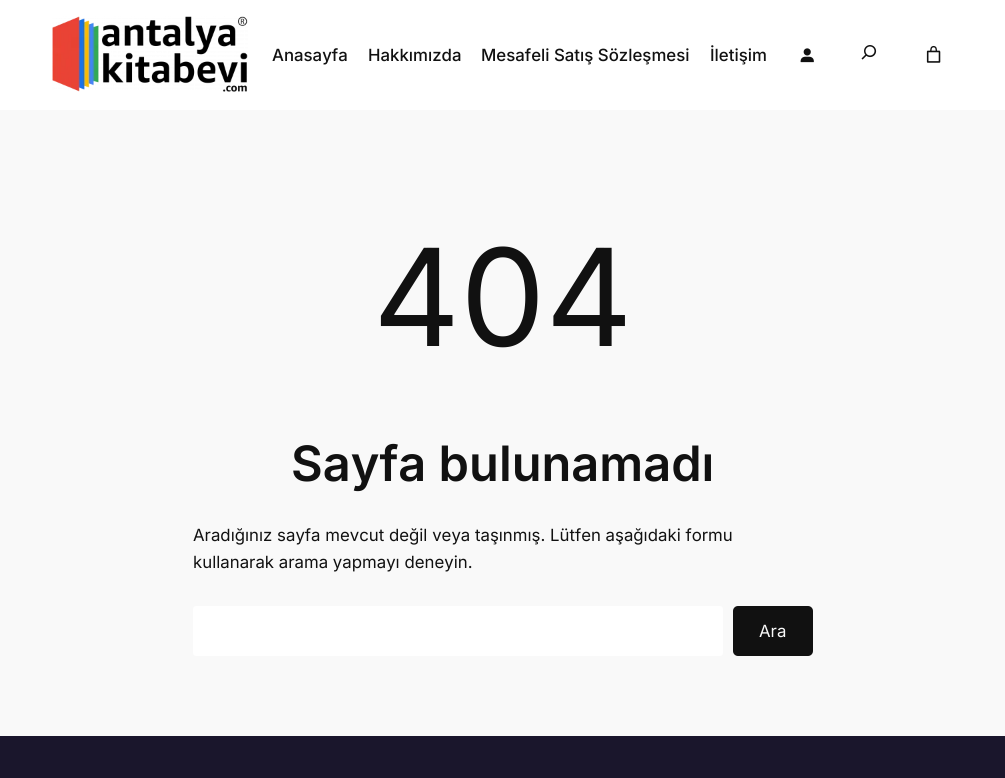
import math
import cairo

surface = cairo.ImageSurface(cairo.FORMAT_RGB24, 1005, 778)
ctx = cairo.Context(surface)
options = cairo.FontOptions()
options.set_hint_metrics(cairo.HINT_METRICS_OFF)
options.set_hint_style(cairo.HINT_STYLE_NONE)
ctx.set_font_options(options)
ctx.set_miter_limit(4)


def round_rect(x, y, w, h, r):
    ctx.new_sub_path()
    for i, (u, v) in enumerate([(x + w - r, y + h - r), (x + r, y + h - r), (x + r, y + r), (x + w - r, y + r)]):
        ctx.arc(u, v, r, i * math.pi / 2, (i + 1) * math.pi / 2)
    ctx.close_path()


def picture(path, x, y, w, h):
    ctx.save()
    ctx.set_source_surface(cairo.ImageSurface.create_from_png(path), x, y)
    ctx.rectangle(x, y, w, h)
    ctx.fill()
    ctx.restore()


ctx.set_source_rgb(0.976, 0.976, 0.976)
ctx.paint()
ctx.set_source_rgb(1, 1, 1)
ctx.rectangle(0, 0, 1005, 110)
ctx.fill()
picture("img1.png", 52, 16, 196, 76)
ctx.select_font_face("Inter Medium")
ctx.set_font_size(16.8)
ctx.set_source_rgb(0.067, 0.067, 0.067)
ctx.move_to(272, 61)
ctx.show_text("Anasayfa")
ctx.move_to(368, 61)
ctx.show_text("Hakkımızda")
ctx.move_to(481, 61)
ctx.show_text("Mesafeli Satış Sözleşmesi")
ctx.move_to(710, 61)
ctx.show_text("İletişim")
picture("img2.png", 800, 48, 14, 15)
picture("img3.png", 861, 45, 16, 15)
picture("img4.png", 926, 45, 15, 18)
ctx.set_source_rgb(1, 1, 1)
ctx.arc(947.5, 46.5, 8.5, 0, 2 * math.pi)
ctx.fill()
ctx.select_font_face("Inter")
ctx.set_font_size(135)
ctx.set_source_rgb(0.067, 0.067, 0.067)
ctx.move_to(373, 346)
ctx.show_text("404")
ctx.select_font_face("Inter SemiBold")
ctx.set_font_size(48.75)
ctx.move_to(291, 481)
ctx.show_text("Sayfa bulunamadı")
ctx.select_font_face("Inter")
ctx.set_font_size(16.8)
ctx.move_to(193, 541)
ctx.show_text("Aradığınız sayfa mevcut değil veya taşınmış. Lütfen aşağıdaki formu")
ctx.move_to(193, 568)
ctx.show_text("kullanarak arama yapmayı deneyin.")
ctx.set_source_rgb(1, 1, 1)
round_rect(193, 606, 530, 50, 3)
ctx.fill()
ctx.set_source_rgb(0.067, 0.067, 0.067)
round_rect(733, 606, 80, 50, 5)
ctx.fill()
ctx.set_source_rgb(0.976, 0.976, 0.976)
ctx.move_to(759, 637)
ctx.show_text("Ara")
ctx.set_source_rgb(0.102, 0.086, 0.173)
ctx.rectangle(0, 736, 1005, 42)
ctx.fill()
surface.write_to_png("page.png")
